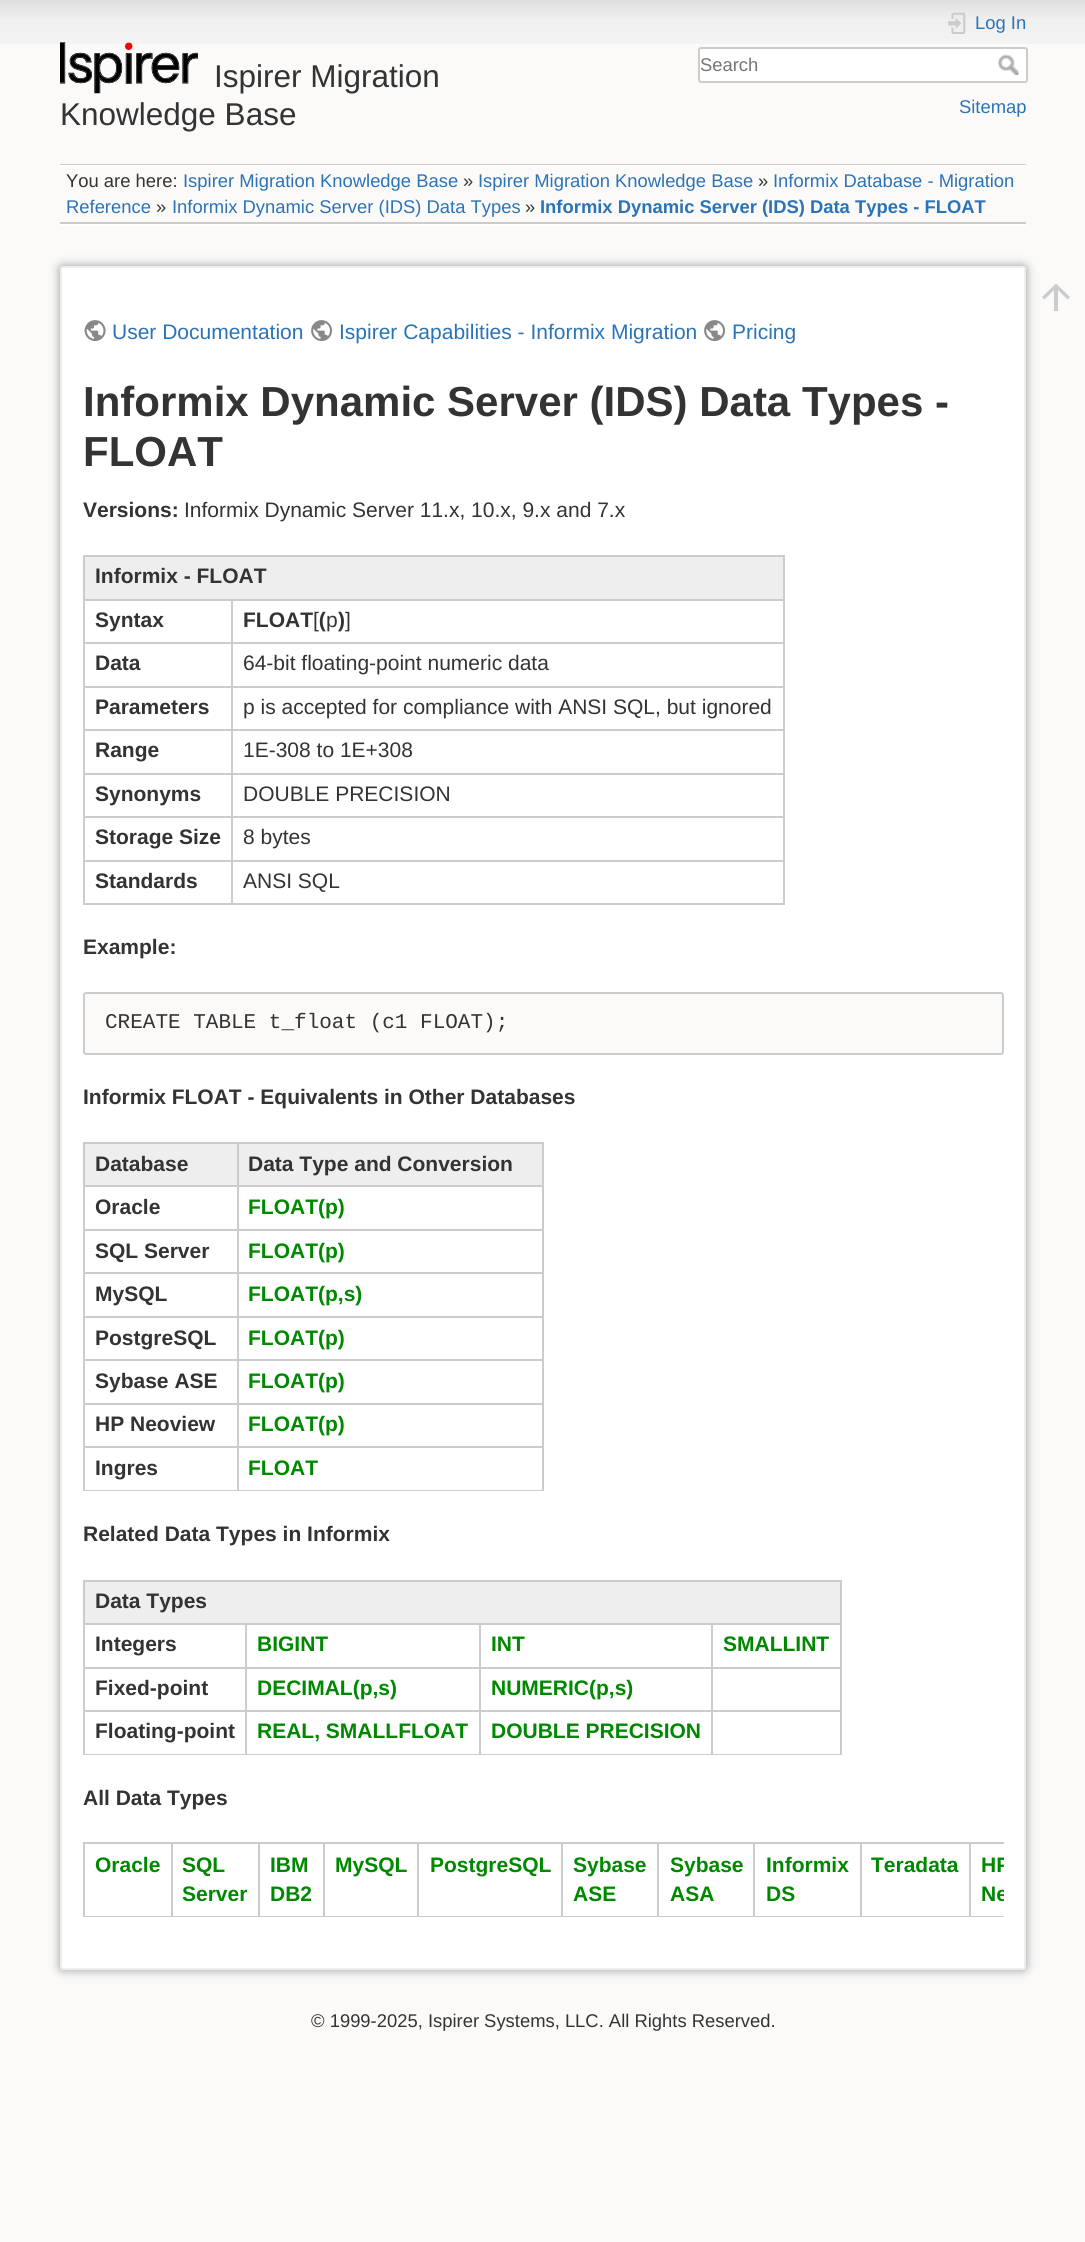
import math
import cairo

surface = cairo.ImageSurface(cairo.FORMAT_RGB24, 1085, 2242)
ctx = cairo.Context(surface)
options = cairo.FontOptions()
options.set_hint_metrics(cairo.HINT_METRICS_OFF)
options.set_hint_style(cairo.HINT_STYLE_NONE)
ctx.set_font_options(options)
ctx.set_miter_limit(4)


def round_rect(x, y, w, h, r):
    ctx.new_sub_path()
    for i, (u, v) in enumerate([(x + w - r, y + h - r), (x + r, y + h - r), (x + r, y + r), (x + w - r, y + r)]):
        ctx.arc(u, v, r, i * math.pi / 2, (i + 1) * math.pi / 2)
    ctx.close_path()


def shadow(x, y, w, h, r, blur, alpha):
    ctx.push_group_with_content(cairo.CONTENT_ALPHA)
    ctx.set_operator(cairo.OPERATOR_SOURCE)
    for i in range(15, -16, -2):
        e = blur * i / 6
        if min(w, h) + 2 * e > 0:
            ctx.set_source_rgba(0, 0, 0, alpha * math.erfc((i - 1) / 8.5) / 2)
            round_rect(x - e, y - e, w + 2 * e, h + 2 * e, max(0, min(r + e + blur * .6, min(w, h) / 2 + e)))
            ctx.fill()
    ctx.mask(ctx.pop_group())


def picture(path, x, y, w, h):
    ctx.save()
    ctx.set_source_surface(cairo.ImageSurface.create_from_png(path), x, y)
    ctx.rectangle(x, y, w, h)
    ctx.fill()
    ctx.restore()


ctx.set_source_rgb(0.984, 0.98, 0.976)
ctx.paint()
picture("img1.png", 0, 0, 1085, 44)
picture("img2.png", 60, 42, 138, 52)
ctx.select_font_face("Liberation Sans")
ctx.set_font_size(31.5)
ctx.set_source_rgb(0.2, 0.2, 0.2)
ctx.move_to(214, 87)
ctx.show_text("Ispirer Migration")
ctx.move_to(60, 125)
ctx.show_text("Knowledge Base")
picture("img3.png", 948, 12, 18, 22)
ctx.set_font_size(18.4)
ctx.set_source_rgb(0.169, 0.451, 0.718)
ctx.move_to(975, 29)
ctx.show_text("Log In")
ctx.set_source_rgb(1, 1, 1)
round_rect(699, 48, 328, 34, 2)
ctx.fill_preserve()
ctx.set_source_rgb(0.8, 0.8, 0.8)
ctx.stroke()
ctx.set_source_rgb(0.459, 0.459, 0.459)
ctx.move_to(700, 71)
ctx.show_text("Search")
picture("img4.png", 997, 54, 22, 21)
ctx.set_source_rgb(0.169, 0.451, 0.718)
ctx.move_to(959, 113)
ctx.show_text("Sitemap")
ctx.set_source_rgb(0.8, 0.8, 0.8)
ctx.rectangle(60, 164, 966, 1)
ctx.fill()
ctx.set_source_rgb(1, 1, 1)
ctx.rectangle(60, 224, 966, 2)
ctx.fill()
ctx.rectangle(60, 165, 966, 2)
ctx.fill()
ctx.set_source_rgb(0.8, 0.8, 0.8)
ctx.rectangle(60, 222, 966, 2)
ctx.fill()
ctx.set_source_rgb(0.2, 0.2, 0.2)
ctx.move_to(66, 187)
ctx.show_text("You are here:")
ctx.set_source_rgb(0.169, 0.451, 0.718)
ctx.move_to(183, 187)
ctx.show_text("Ispirer Migration Knowledge Base")
ctx.set_source_rgb(0.2, 0.2, 0.2)
ctx.move_to(463, 187)
ctx.show_text("»")
ctx.set_source_rgb(0.169, 0.451, 0.718)
ctx.move_to(478, 187)
ctx.show_text("Ispirer Migration Knowledge Base")
ctx.set_source_rgb(0.2, 0.2, 0.2)
ctx.move_to(758, 187)
ctx.show_text("»")
ctx.set_source_rgb(0.169, 0.451, 0.718)
ctx.move_to(773, 187)
ctx.show_text("Informix Database - Migration")
ctx.move_to(66, 213)
ctx.show_text("Reference")
ctx.set_source_rgb(0.2, 0.2, 0.2)
ctx.move_to(156, 213)
ctx.show_text("»")
ctx.set_source_rgb(0.169, 0.451, 0.718)
ctx.move_to(172, 213)
ctx.show_text("Informix Dynamic Server (IDS) Data Types")
ctx.set_source_rgb(0.2, 0.2, 0.2)
ctx.move_to(525, 213)
ctx.show_text("»")
ctx.select_font_face("Liberation Sans", cairo.FONT_SLANT_NORMAL, cairo.FONT_WEIGHT_BOLD)
ctx.set_source_rgb(0.169, 0.451, 0.718)
ctx.move_to(540, 213)
ctx.show_text("Informix Dynamic Server (IDS) Data Types - FLOAT")
ctx.set_source_rgb(0.8, 0.8, 0.8)
ctx.new_path()
ctx.move_to(1058, 311)
ctx.line_to(1054, 311)
ctx.line_to(1054, 290)
ctx.line_to(1044.5, 299.5)
ctx.line_to(1042, 297)
ctx.line_to(1056, 283.5)
ctx.line_to(1070, 297)
ctx.line_to(1067.5, 299.5)
ctx.line_to(1058, 290)
ctx.close_path()
ctx.fill()
ctx.set_source_rgb(0.6, 0.6, 0.6)
shadow(60, 266, 966, 1704, 3, 5, 1)
ctx.set_source_rgb(1, 1, 1)
round_rect(61, 267, 964, 1702, 2)
ctx.fill_preserve()
ctx.set_source_rgb(0.933, 0.933, 0.933)
ctx.stroke()
picture("img5.png", 84, 320, 22, 22)
ctx.select_font_face("Liberation Sans")
ctx.set_font_size(21)
ctx.set_source_rgb(0.169, 0.451, 0.718)
ctx.move_to(112, 339)
ctx.show_text("User Documentation")
picture("img6.png", 311, 320, 22, 22)
ctx.move_to(339, 339)
ctx.show_text("Ispirer Capabilities - Informix Migration")
picture("img6.png", 704, 320, 22, 22)
ctx.move_to(732, 339)
ctx.show_text("Pricing")
ctx.select_font_face("Liberation Sans", cairo.FONT_SLANT_NORMAL, cairo.FONT_WEIGHT_BOLD)
ctx.set_font_size(42)
ctx.set_source_rgb(0.2, 0.2, 0.2)
ctx.move_to(83, 416)
ctx.show_text("Informix Dynamic Server (IDS) Data Types -")
ctx.move_to(83, 466)
ctx.show_text("FLOAT")
ctx.set_font_size(21)
ctx.move_to(83, 517)
ctx.show_text("Versions:")
ctx.select_font_face("Liberation Sans")
ctx.move_to(184, 517)
ctx.show_text("Informix Dynamic Server 11.x, 10.x, 9.x and 7.x")
ctx.set_source_rgb(0.8, 0.8, 0.8)
ctx.rectangle(83, 555, 702, 2)
ctx.fill()
ctx.rectangle(783, 555, 2, 350)
ctx.fill()
ctx.rectangle(83, 903, 702, 2)
ctx.fill()
ctx.rectangle(83, 555, 2, 350)
ctx.fill()
ctx.set_source_rgb(0.933, 0.933, 0.933)
ctx.rectangle(85, 557, 698, 42)
ctx.fill()
ctx.select_font_face("Liberation Sans", cairo.FONT_SLANT_NORMAL, cairo.FONT_WEIGHT_BOLD)
ctx.set_source_rgb(0.2, 0.2, 0.2)
ctx.move_to(95, 583)
ctx.show_text("Informix - FLOAT")
ctx.set_source_rgb(0.8, 0.8, 0.8)
ctx.rectangle(231, 599, 554, 2)
ctx.fill()
ctx.rectangle(231, 642, 554, 2)
ctx.fill()
ctx.rectangle(231, 686, 554, 2)
ctx.fill()
ctx.rectangle(231, 729, 554, 2)
ctx.fill()
ctx.rectangle(231, 773, 554, 2)
ctx.fill()
ctx.rectangle(231, 816, 554, 2)
ctx.fill()
ctx.rectangle(231, 860, 554, 2)
ctx.fill()
ctx.rectangle(231, 860, 2, 45)
ctx.fill()
ctx.rectangle(83, 860, 150, 2)
ctx.fill()
ctx.rectangle(231, 816, 2, 45)
ctx.fill()
ctx.rectangle(83, 816, 150, 2)
ctx.fill()
ctx.rectangle(231, 773, 2, 45)
ctx.fill()
ctx.rectangle(83, 773, 150, 2)
ctx.fill()
ctx.rectangle(231, 729, 2, 45)
ctx.fill()
ctx.rectangle(83, 729, 150, 2)
ctx.fill()
ctx.rectangle(231, 686, 2, 45)
ctx.fill()
ctx.rectangle(83, 686, 150, 2)
ctx.fill()
ctx.rectangle(231, 642, 2, 45)
ctx.fill()
ctx.rectangle(83, 642, 150, 2)
ctx.fill()
ctx.rectangle(231, 599, 2, 45)
ctx.fill()
ctx.rectangle(83, 599, 150, 2)
ctx.fill()
ctx.set_source_rgb(0.2, 0.2, 0.2)
ctx.move_to(95, 627)
ctx.show_text("Syntax")
ctx.move_to(243, 627)
ctx.show_text("FLOAT (")
ctx.select_font_face("Liberation Sans")
ctx.move_to(313, 627)
ctx.show_text("[")
ctx.move_to(326, 627)
ctx.show_text("p")
ctx.select_font_face("Liberation Sans", cairo.FONT_SLANT_NORMAL, cairo.FONT_WEIGHT_BOLD)
ctx.move_to(338, 627)
ctx.show_text(")")
ctx.select_font_face("Liberation Sans")
ctx.move_to(345, 627)
ctx.show_text("]")
ctx.select_font_face("Liberation Sans", cairo.FONT_SLANT_NORMAL, cairo.FONT_WEIGHT_BOLD)
ctx.move_to(95, 670)
ctx.show_text("Data")
ctx.select_font_face("Liberation Sans")
ctx.move_to(243, 670)
ctx.show_text("64-bit floating-point numeric data")
ctx.select_font_face("Liberation Sans", cairo.FONT_SLANT_NORMAL, cairo.FONT_WEIGHT_BOLD)
ctx.move_to(95, 714)
ctx.show_text("Parameters")
ctx.select_font_face("Liberation Sans")
ctx.move_to(243, 714)
ctx.show_text("p is accepted for compliance with ANSI SQL, but ignored")
ctx.select_font_face("Liberation Sans", cairo.FONT_SLANT_NORMAL, cairo.FONT_WEIGHT_BOLD)
ctx.move_to(95, 757)
ctx.show_text("Range")
ctx.select_font_face("Liberation Sans")
ctx.move_to(243, 757)
ctx.show_text("1E-308 to 1E+308")
ctx.select_font_face("Liberation Sans", cairo.FONT_SLANT_NORMAL, cairo.FONT_WEIGHT_BOLD)
ctx.move_to(95, 801)
ctx.show_text("Synonyms")
ctx.select_font_face("Liberation Sans")
ctx.move_to(243, 801)
ctx.show_text("DOUBLE PRECISION")
ctx.select_font_face("Liberation Sans", cairo.FONT_SLANT_NORMAL, cairo.FONT_WEIGHT_BOLD)
ctx.move_to(95, 844)
ctx.show_text("Storage Size")
ctx.select_font_face("Liberation Sans")
ctx.move_to(243, 844)
ctx.show_text("8 bytes")
ctx.select_font_face("Liberation Sans", cairo.FONT_SLANT_NORMAL, cairo.FONT_WEIGHT_BOLD)
ctx.move_to(95, 888)
ctx.show_text("Standards")
ctx.select_font_face("Liberation Sans")
ctx.move_to(243, 888)
ctx.show_text("ANSI SQL")
ctx.select_font_face("Liberation Sans", cairo.FONT_SLANT_NORMAL, cairo.FONT_WEIGHT_BOLD)
ctx.move_to(83, 954)
ctx.show_text("Example:")
ctx.set_source_rgb(0.984, 0.98, 0.976)
round_rect(84, 993, 919, 61, 2)
ctx.fill_preserve()
ctx.set_source_rgb(0.8, 0.8, 0.8)
ctx.stroke()
ctx.select_font_face("Liberation Mono")
ctx.set_source_rgb(0.2, 0.2, 0.2)
ctx.move_to(105, 1028)
ctx.show_text("CREATE TABLE t_float (c1 FLOAT);")
ctx.select_font_face("Liberation Sans", cairo.FONT_SLANT_NORMAL, cairo.FONT_WEIGHT_BOLD)
ctx.move_to(83, 1104)
ctx.show_text("Informix FLOAT - Equivalents in Other Databases")
ctx.set_source_rgb(0.8, 0.8, 0.8)
ctx.rectangle(83, 1142, 460, 2)
ctx.fill()
ctx.rectangle(542, 1142, 2, 349)
ctx.fill()
ctx.rectangle(83, 1490, 460, 1)
ctx.fill()
ctx.rectangle(83, 1142, 2, 349)
ctx.fill()
ctx.set_source_rgb(0.933, 0.933, 0.933)
ctx.rectangle(85, 1144, 152, 41)
ctx.fill()
ctx.set_source_rgb(0.2, 0.2, 0.2)
ctx.move_to(95, 1171)
ctx.show_text("Database")
ctx.set_source_rgb(0.933, 0.933, 0.933)
ctx.rectangle(239, 1144, 303, 41)
ctx.fill()
ctx.set_source_rgb(0.8, 0.8, 0.8)
ctx.rectangle(237, 1185, 306, 2)
ctx.fill()
ctx.rectangle(237, 1229, 306, 2)
ctx.fill()
ctx.rectangle(237, 1272, 306, 2)
ctx.fill()
ctx.rectangle(237, 1316, 306, 2)
ctx.fill()
ctx.rectangle(237, 1359, 306, 2)
ctx.fill()
ctx.rectangle(237, 1403, 306, 2)
ctx.fill()
ctx.rectangle(237, 1446, 306, 2)
ctx.fill()
ctx.rectangle(237, 1446, 2, 45)
ctx.fill()
ctx.rectangle(83, 1446, 156, 2)
ctx.fill()
ctx.rectangle(237, 1403, 2, 45)
ctx.fill()
ctx.rectangle(83, 1403, 156, 2)
ctx.fill()
ctx.rectangle(237, 1359, 2, 45)
ctx.fill()
ctx.rectangle(83, 1359, 156, 2)
ctx.fill()
ctx.rectangle(237, 1316, 2, 45)
ctx.fill()
ctx.rectangle(83, 1316, 156, 2)
ctx.fill()
ctx.rectangle(237, 1272, 2, 45)
ctx.fill()
ctx.rectangle(83, 1272, 156, 2)
ctx.fill()
ctx.rectangle(237, 1229, 2, 45)
ctx.fill()
ctx.rectangle(83, 1229, 156, 2)
ctx.fill()
ctx.rectangle(237, 1185, 2, 45)
ctx.fill()
ctx.rectangle(83, 1185, 156, 2)
ctx.fill()
ctx.rectangle(237, 1142, 2, 45)
ctx.fill()
ctx.set_source_rgb(0.2, 0.2, 0.2)
ctx.move_to(248, 1171)
ctx.show_text("Data Type and Conversion")
ctx.move_to(95, 1214)
ctx.show_text("Oracle")
ctx.set_source_rgb(0, 0.533, 0)
ctx.move_to(248, 1214)
ctx.show_text("FLOAT(p)")
ctx.set_source_rgb(0.2, 0.2, 0.2)
ctx.move_to(95, 1258)
ctx.show_text("SQL Server")
ctx.set_source_rgb(0, 0.533, 0)
ctx.move_to(248, 1258)
ctx.show_text("FLOAT(p)")
ctx.set_source_rgb(0.2, 0.2, 0.2)
ctx.move_to(95, 1301)
ctx.show_text("MySQL")
ctx.set_source_rgb(0, 0.533, 0)
ctx.move_to(248, 1301)
ctx.show_text("FLOAT(p,s)")
ctx.set_source_rgb(0.2, 0.2, 0.2)
ctx.move_to(95, 1345)
ctx.show_text("PostgreSQL")
ctx.set_source_rgb(0, 0.533, 0)
ctx.move_to(248, 1345)
ctx.show_text("FLOAT(p)")
ctx.set_source_rgb(0.2, 0.2, 0.2)
ctx.move_to(95, 1388)
ctx.show_text("Sybase ASE")
ctx.set_source_rgb(0, 0.533, 0)
ctx.move_to(248, 1388)
ctx.show_text("FLOAT(p)")
ctx.set_source_rgb(0.2, 0.2, 0.2)
ctx.move_to(95, 1431)
ctx.show_text("HP Neoview")
ctx.set_source_rgb(0, 0.533, 0)
ctx.move_to(248, 1431)
ctx.show_text("FLOAT(p)")
ctx.set_source_rgb(0.2, 0.2, 0.2)
ctx.move_to(95, 1475)
ctx.show_text("Ingres")
ctx.set_source_rgb(0, 0.533, 0)
ctx.move_to(248, 1475)
ctx.show_text("FLOAT")
ctx.set_source_rgb(0.2, 0.2, 0.2)
ctx.move_to(83, 1541)
ctx.show_text("Related Data Types in Informix")
ctx.set_source_rgb(0.8, 0.8, 0.8)
ctx.rectangle(83, 1580, 759, 2)
ctx.fill()
ctx.rectangle(840, 1580, 2, 175)
ctx.fill()
ctx.rectangle(83, 1754, 759, 1)
ctx.fill()
ctx.rectangle(83, 1580, 2, 175)
ctx.fill()
ctx.set_source_rgb(0.933, 0.933, 0.933)
ctx.rectangle(85, 1582, 755, 41)
ctx.fill()
ctx.set_source_rgb(0.2, 0.2, 0.2)
ctx.move_to(95, 1608)
ctx.show_text("Data Types")
ctx.set_source_rgb(0.8, 0.8, 0.8)
ctx.rectangle(711, 1623, 131, 2)
ctx.fill()
ctx.rectangle(711, 1667, 131, 2)
ctx.fill()
ctx.rectangle(711, 1710, 131, 2)
ctx.fill()
ctx.rectangle(711, 1710, 2, 45)
ctx.fill()
ctx.rectangle(479, 1710, 234, 2)
ctx.fill()
ctx.rectangle(711, 1667, 2, 45)
ctx.fill()
ctx.rectangle(479, 1667, 234, 2)
ctx.fill()
ctx.rectangle(711, 1623, 2, 45)
ctx.fill()
ctx.rectangle(479, 1623, 234, 2)
ctx.fill()
ctx.rectangle(479, 1710, 2, 45)
ctx.fill()
ctx.rectangle(245, 1710, 235, 2)
ctx.fill()
ctx.rectangle(479, 1667, 2, 45)
ctx.fill()
ctx.rectangle(245, 1667, 235, 2)
ctx.fill()
ctx.rectangle(479, 1623, 2, 45)
ctx.fill()
ctx.rectangle(245, 1623, 235, 2)
ctx.fill()
ctx.rectangle(245, 1710, 2, 45)
ctx.fill()
ctx.rectangle(83, 1710, 163, 2)
ctx.fill()
ctx.rectangle(245, 1667, 2, 45)
ctx.fill()
ctx.rectangle(83, 1667, 163, 2)
ctx.fill()
ctx.rectangle(245, 1623, 2, 45)
ctx.fill()
ctx.rectangle(83, 1623, 163, 2)
ctx.fill()
ctx.set_source_rgb(0.2, 0.2, 0.2)
ctx.move_to(95, 1651)
ctx.show_text("Integers")
ctx.set_source_rgb(0, 0.533, 0)
ctx.move_to(257, 1651)
ctx.show_text("BIGINT")
ctx.move_to(491, 1651)
ctx.show_text("INT")
ctx.move_to(723, 1651)
ctx.show_text("SMALLINT")
ctx.set_source_rgb(0.2, 0.2, 0.2)
ctx.move_to(95, 1695)
ctx.show_text("Fixed-point")
ctx.set_source_rgb(0, 0.533, 0)
ctx.move_to(257, 1695)
ctx.show_text("DECIMAL(p,s)")
ctx.move_to(491, 1695)
ctx.show_text("NUMERIC(p,s)")
ctx.set_source_rgb(0.2, 0.2, 0.2)
ctx.move_to(95, 1738)
ctx.show_text("Floating-point")
ctx.set_source_rgb(0, 0.533, 0)
ctx.move_to(257, 1738)
ctx.show_text("REAL, SMALLFLOAT")
ctx.move_to(491, 1738)
ctx.show_text("DOUBLE PRECISION")
ctx.set_source_rgb(0.2, 0.2, 0.2)
ctx.move_to(83, 1805)
ctx.show_text("All Data Types")
ctx.set_source_rgb(0.8, 0.8, 0.8)
ctx.rectangle(83, 1842, 921, 2)
ctx.fill()
ctx.rectangle(83, 1916, 921, 1)
ctx.fill()
ctx.rectangle(83, 1842, 2, 75)
ctx.fill()
ctx.set_source_rgb(0, 0.533, 0)
ctx.move_to(95, 1872)
ctx.show_text("Oracle")
ctx.set_source_rgb(0.8, 0.8, 0.8)
ctx.rectangle(171, 1842, 2, 75)
ctx.fill()
ctx.set_source_rgb(0, 0.533, 0)
ctx.move_to(182, 1872)
ctx.show_text("SQL")
ctx.move_to(182, 1901)
ctx.show_text("Server")
ctx.set_source_rgb(0.8, 0.8, 0.8)
ctx.rectangle(258, 1842, 2, 75)
ctx.fill()
ctx.set_source_rgb(0, 0.533, 0)
ctx.move_to(270, 1872)
ctx.show_text("IBM")
ctx.move_to(270, 1901)
ctx.show_text("DB2")
ctx.set_source_rgb(0.8, 0.8, 0.8)
ctx.rectangle(323, 1842, 2, 75)
ctx.fill()
ctx.set_source_rgb(0, 0.533, 0)
ctx.move_to(335, 1872)
ctx.show_text("MySQL")
ctx.set_source_rgb(0.8, 0.8, 0.8)
ctx.rectangle(417, 1842, 2, 75)
ctx.fill()
ctx.set_source_rgb(0, 0.533, 0)
ctx.move_to(430, 1872)
ctx.show_text("PostgreSQL")
ctx.set_source_rgb(0.8, 0.8, 0.8)
ctx.rectangle(561, 1842, 2, 75)
ctx.fill()
ctx.set_source_rgb(0, 0.533, 0)
ctx.move_to(573, 1872)
ctx.show_text("Sybase")
ctx.move_to(573, 1901)
ctx.show_text("ASE")
ctx.set_source_rgb(0.8, 0.8, 0.8)
ctx.rectangle(657, 1842, 2, 75)
ctx.fill()
ctx.set_source_rgb(0, 0.533, 0)
ctx.move_to(670, 1872)
ctx.show_text("Sybase")
ctx.move_to(670, 1901)
ctx.show_text("ASA")
ctx.set_source_rgb(0.8, 0.8, 0.8)
ctx.rectangle(753, 1842, 2, 75)
ctx.fill()
ctx.set_source_rgb(0, 0.533, 0)
ctx.move_to(766, 1872)
ctx.show_text("Informix")
ctx.move_to(766, 1901)
ctx.show_text("DS")
ctx.set_source_rgb(0.8, 0.8, 0.8)
ctx.rectangle(860, 1842, 2, 75)
ctx.fill()
ctx.set_source_rgb(0, 0.533, 0)
ctx.move_to(871, 1872)
ctx.show_text("Teradata")
ctx.set_source_rgb(0.8, 0.8, 0.8)
ctx.rectangle(969, 1842, 2, 75)
ctx.fill()
ctx.save()
ctx.rectangle(83, 1842, 921, 75)
ctx.clip()
ctx.set_source_rgb(0, 0.533, 0)
ctx.move_to(981, 1872)
ctx.show_text("HP")
ctx.move_to(981, 1901)
ctx.show_text("Ne")
ctx.restore()
ctx.select_font_face("Liberation Sans")
ctx.set_font_size(18.4)
ctx.set_source_rgb(0.2, 0.2, 0.2)
ctx.move_to(311, 2027)
ctx.show_text("© 1999-2025, Ispirer Systems, LLC. All Rights Reserved.")
surface.write_to_png("page.png")
